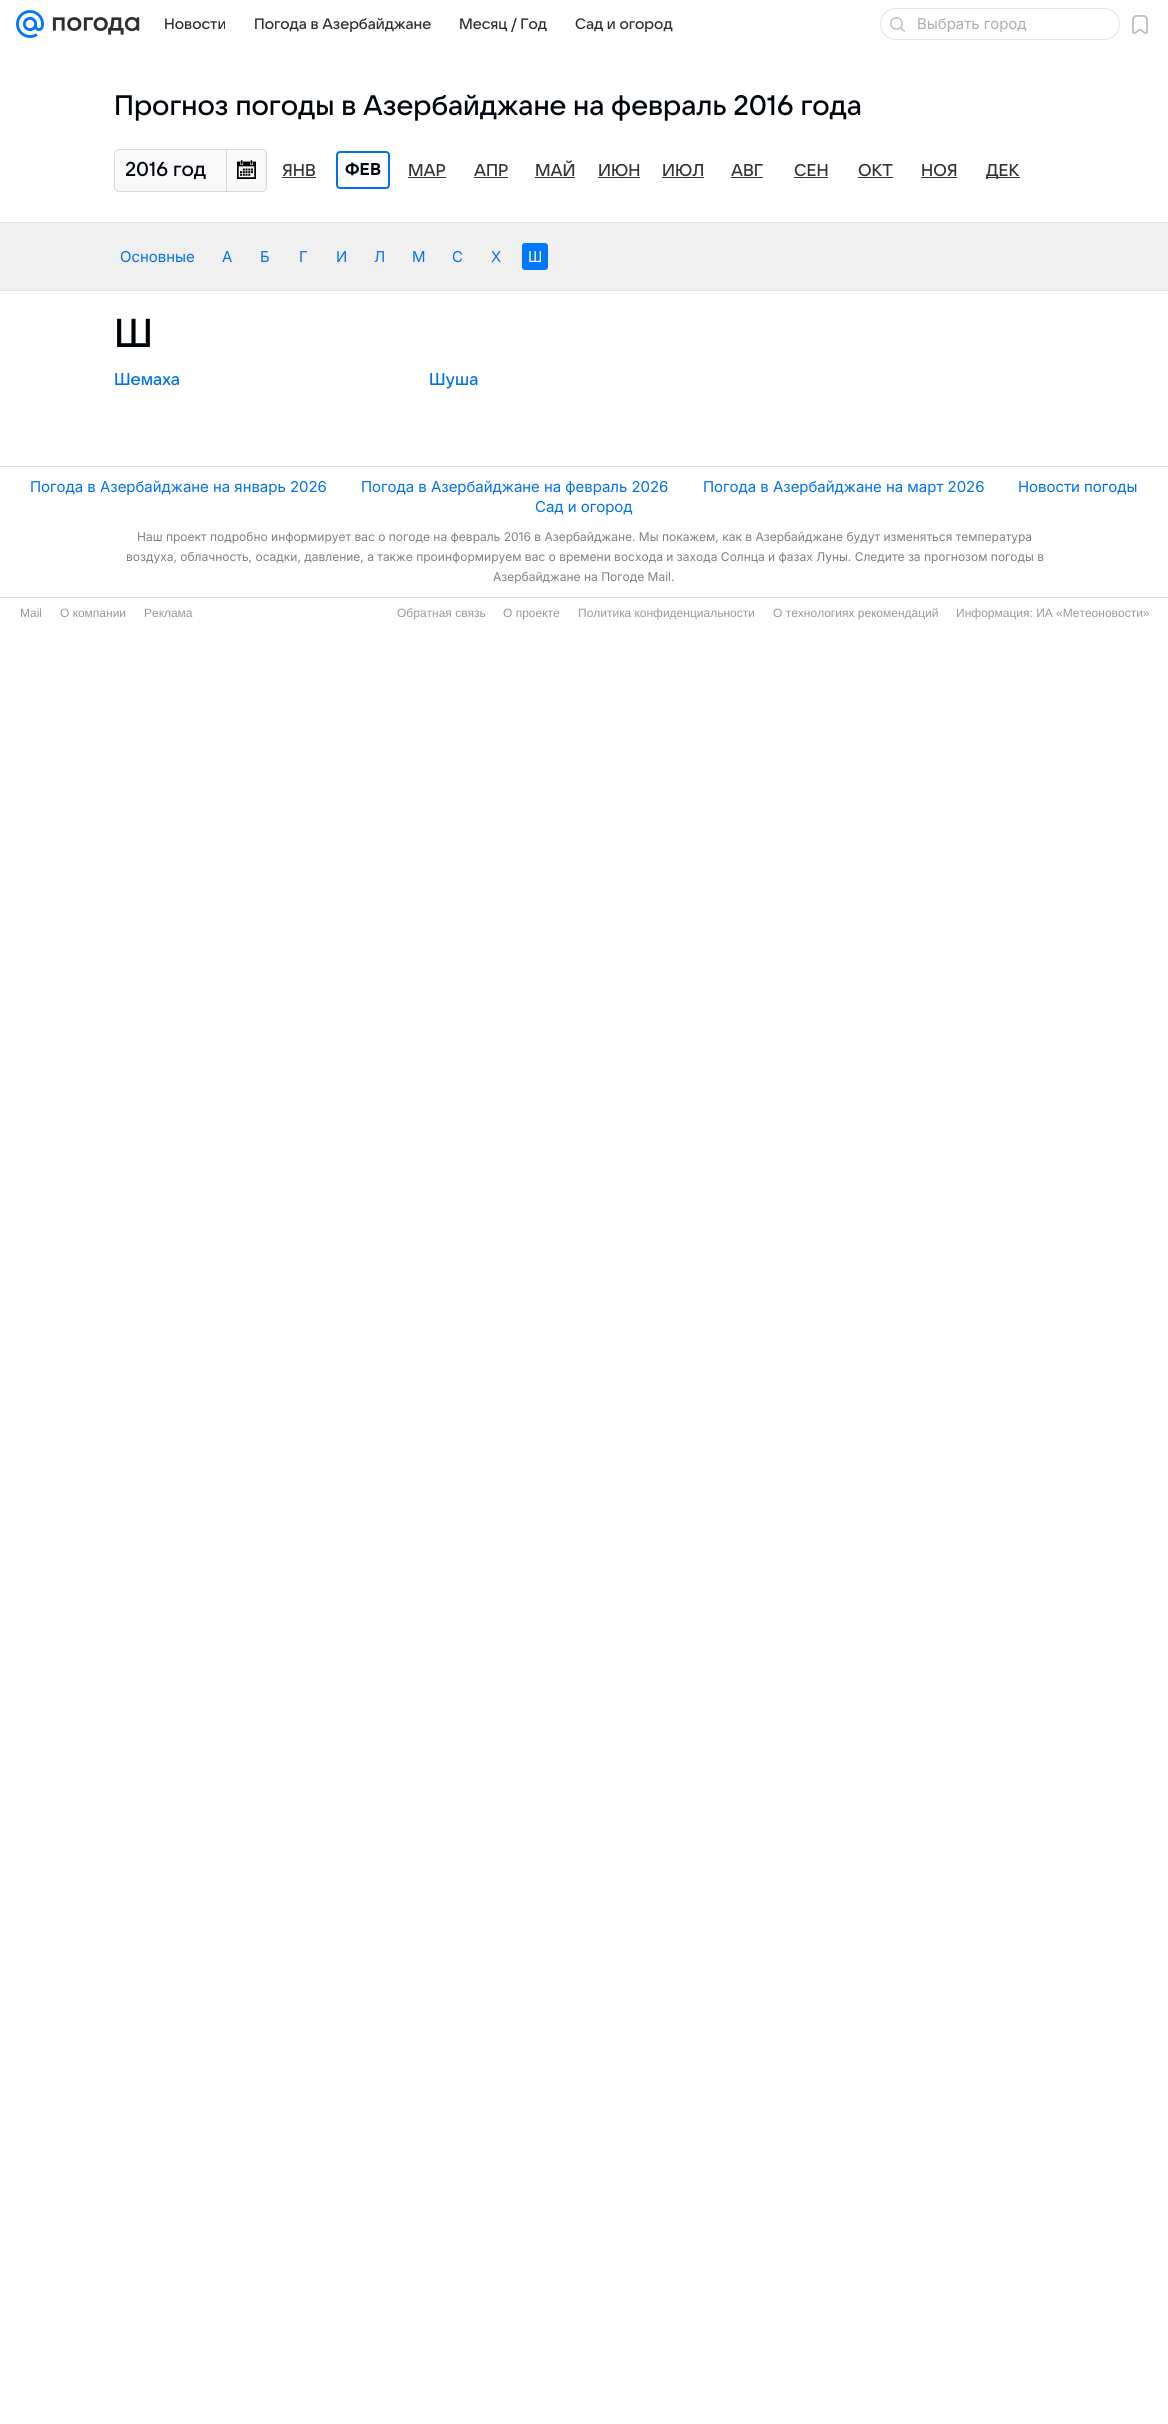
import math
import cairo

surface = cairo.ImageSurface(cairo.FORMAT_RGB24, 1168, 2424)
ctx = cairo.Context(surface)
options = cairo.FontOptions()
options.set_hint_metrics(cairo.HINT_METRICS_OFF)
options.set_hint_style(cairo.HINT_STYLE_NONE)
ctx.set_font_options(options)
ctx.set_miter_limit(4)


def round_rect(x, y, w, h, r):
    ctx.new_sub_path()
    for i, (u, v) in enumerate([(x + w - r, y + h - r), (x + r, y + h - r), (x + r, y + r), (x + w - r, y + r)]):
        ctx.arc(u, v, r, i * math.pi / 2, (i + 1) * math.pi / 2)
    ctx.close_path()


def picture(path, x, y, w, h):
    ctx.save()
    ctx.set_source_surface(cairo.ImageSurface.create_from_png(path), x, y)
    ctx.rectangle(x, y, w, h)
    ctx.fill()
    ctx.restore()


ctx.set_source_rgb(1, 1, 1)
ctx.paint()
picture("img1.png", 16, 10, 28, 28)
picture("img2.png", 52, 17, 88, 18)
ctx.select_font_face("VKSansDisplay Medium")
ctx.set_font_size(15)
ctx.set_source_rgb(0.173, 0.176, 0.18)
ctx.move_to(164, 29)
ctx.show_text("Новости")
ctx.move_to(254, 29)
ctx.show_text("Погода в Азербайджане")
ctx.move_to(459, 29)
ctx.show_text("Месяц / Год")
ctx.move_to(575, 29)
ctx.show_text("Сад и огород")
round_rect(880.5, 8.5, 239, 31, 15.5)
ctx.set_source_rgb(0.878, 0.886, 0.91)
ctx.set_line_width(1)
ctx.stroke()
picture("img3.png", 890, 17, 15, 15)
ctx.select_font_face("Inter")
ctx.set_source_rgb(0.667, 0.678, 0.702)
ctx.move_to(917, 29)
ctx.show_text("Выбрать город")
picture("img4.png", 1132, 15, 16, 19)
ctx.select_font_face("VKSansDisplay Medium")
ctx.set_font_size(28)
ctx.set_source_rgb(0, 0.02, 0.047)
ctx.move_to(114, 115)
ctx.show_text("Прогноз погоды в Азербайджане на февраль 2016 года")
ctx.set_source_rgb(0.976, 0.976, 0.976)
round_rect(114.5, 149.5, 152, 42, 4.5)
ctx.fill_preserve()
ctx.set_source_rgb(0.843, 0.843, 0.843)
ctx.stroke()
ctx.set_font_size(20)
ctx.set_source_rgb(0, 0.02, 0.047)
ctx.move_to(125, 176)
ctx.show_text("2016 год")
ctx.set_source_rgb(0.843, 0.843, 0.843)
ctx.rectangle(226, 150, 1, 41)
ctx.fill()
picture("img5.png", 237, 160, 19, 19)
ctx.set_font_size(17)
ctx.set_source_rgb(0.2, 0.2, 0.2)
ctx.move_to(282, 176)
ctx.show_text("ЯНВ")
ctx.rectangle(282, 177, 34, 1)
ctx.fill()
round_rect(337, 152, 52, 36, 3)
ctx.set_source_rgb(0, 0.439, 0.941)
ctx.set_line_width(2)
ctx.stroke()
ctx.select_font_face("VKSansDisplay", cairo.FONT_SLANT_NORMAL, cairo.FONT_WEIGHT_BOLD)
ctx.set_source_rgb(0, 0.02, 0.047)
ctx.move_to(345, 175)
ctx.show_text("ФЕВ")
ctx.select_font_face("VKSansDisplay Medium")
ctx.set_source_rgb(0.2, 0.2, 0.2)
ctx.move_to(408, 176)
ctx.show_text("МАР")
ctx.rectangle(408, 177, 38, 1)
ctx.fill()
ctx.move_to(474, 176)
ctx.show_text("АПР")
ctx.rectangle(474, 177, 34, 1)
ctx.fill()
ctx.move_to(535, 176)
ctx.show_text("МАЙ")
ctx.rectangle(535, 177, 40, 1)
ctx.fill()
ctx.move_to(598, 176)
ctx.show_text("ИЮН")
ctx.rectangle(598, 177, 42, 1)
ctx.fill()
ctx.move_to(662, 176)
ctx.show_text("ИЮЛ")
ctx.rectangle(662, 177, 42, 1)
ctx.fill()
ctx.move_to(731, 176)
ctx.show_text("АВГ")
ctx.rectangle(731, 177, 32, 1)
ctx.fill()
ctx.move_to(794, 176)
ctx.show_text("СЕН")
ctx.rectangle(794, 177, 34, 1)
ctx.fill()
ctx.move_to(858, 176)
ctx.show_text("ОКТ")
ctx.rectangle(858, 177, 35, 1)
ctx.fill()
ctx.move_to(921, 176)
ctx.show_text("НОЯ")
ctx.rectangle(921, 177, 36, 1)
ctx.fill()
ctx.rectangle(986, 177, 34, 1)
ctx.fill()
ctx.move_to(986, 176)
ctx.show_text("ДЕК")
ctx.set_source_rgb(0.941, 0.941, 0.941)
ctx.rectangle(0, 223, 1168, 67)
ctx.fill()
ctx.set_source_rgb(0.882, 0.882, 0.882)
ctx.rectangle(0, 222, 1168, 1)
ctx.fill()
ctx.rectangle(0, 290, 1168, 1)
ctx.fill()
ctx.select_font_face("Inter")
ctx.set_font_size(15)
ctx.set_source_rgb(0, 0.439, 0.941)
ctx.move_to(120, 262)
ctx.show_text("Основные")
ctx.move_to(222, 262)
ctx.show_text("А")
ctx.move_to(260, 262)
ctx.show_text("Б")
ctx.move_to(299, 262)
ctx.show_text("Г")
ctx.move_to(336, 262)
ctx.show_text("И")
ctx.move_to(374, 262)
ctx.show_text("Л")
ctx.move_to(412, 262)
ctx.show_text("М")
ctx.move_to(452, 262)
ctx.show_text("С")
ctx.move_to(491, 262)
ctx.show_text("Х")
ctx.set_source_rgb(0, 0.467, 1)
round_rect(522.5, 243.5, 25, 26, 2.5)
ctx.fill_preserve()
ctx.set_line_width(1)
ctx.stroke()
ctx.set_source_rgb(1, 1, 1)
ctx.move_to(528, 262)
ctx.show_text("Ш")
ctx.select_font_face("VKSansDisplay Medium")
ctx.set_font_size(40)
ctx.set_source_rgb(0, 0.02, 0.047)
ctx.move_to(114, 347)
ctx.show_text("Ш")
ctx.set_font_size(17)
ctx.set_source_rgb(0, 0.439, 0.941)
ctx.move_to(114, 385)
ctx.show_text("Шемаха")
ctx.move_to(429, 385)
ctx.show_text("Шуша")
ctx.set_source_rgb(0.871, 0.871, 0.871)
ctx.rectangle(0, 466, 1168, 1)
ctx.fill()
ctx.select_font_face("Inter")
ctx.set_font_size(15)
ctx.set_source_rgb(0, 0.439, 0.941)
ctx.move_to(30, 492)
ctx.show_text("Погода в Азербайджане на январь 2026")
ctx.move_to(361, 492)
ctx.show_text("Погода в Азербайджане на февраль 2026")
ctx.move_to(703, 492)
ctx.show_text("Погода в Азербайджане на март 2026")
ctx.move_to(1018, 492)
ctx.show_text("Новости погоды")
ctx.move_to(535, 512)
ctx.show_text("Сад и огород")
ctx.select_font_face("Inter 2")
ctx.set_font_size(12)
ctx.set_source_rgb(0.502, 0.502, 0.502)
ctx.move_to(137, 541)
ctx.show_text("Наш проект подробно информирует вас о погоде на февраль 2016 в Азербайджане. Мы покажем, как в Азербайджане будут изменяться температура")
ctx.move_to(126, 561)
ctx.show_text("воздуха, облачность, осадки, давление, а также проинформируем вас о времени восхода и захода Солнца и фазах Луны. Следите за прогнозом погоды в")
ctx.move_to(493, 581)
ctx.show_text("Азербайджане на Погоде Mail.")
ctx.set_source_rgb(0.835, 0.835, 0.835)
ctx.rectangle(0, 597, 1168, 1)
ctx.fill()
ctx.select_font_face("Liberation Sans")
ctx.set_source_rgb(0.6, 0.6, 0.6)
ctx.move_to(20, 617)
ctx.show_text("Mail")
ctx.move_to(60, 617)
ctx.show_text("О компании")
ctx.move_to(144, 617)
ctx.show_text("Реклама")
ctx.move_to(397, 617)
ctx.show_text("Обратная связь")
ctx.move_to(503, 617)
ctx.show_text("О проекте")
ctx.move_to(578, 617)
ctx.show_text("Политика конфиденциальности")
ctx.move_to(773, 617)
ctx.show_text("О технологиях рекомендаций")
ctx.move_to(956, 617)
ctx.show_text("Информация: ИА «Метеоновости»")
surface.write_to_png("page.png")
